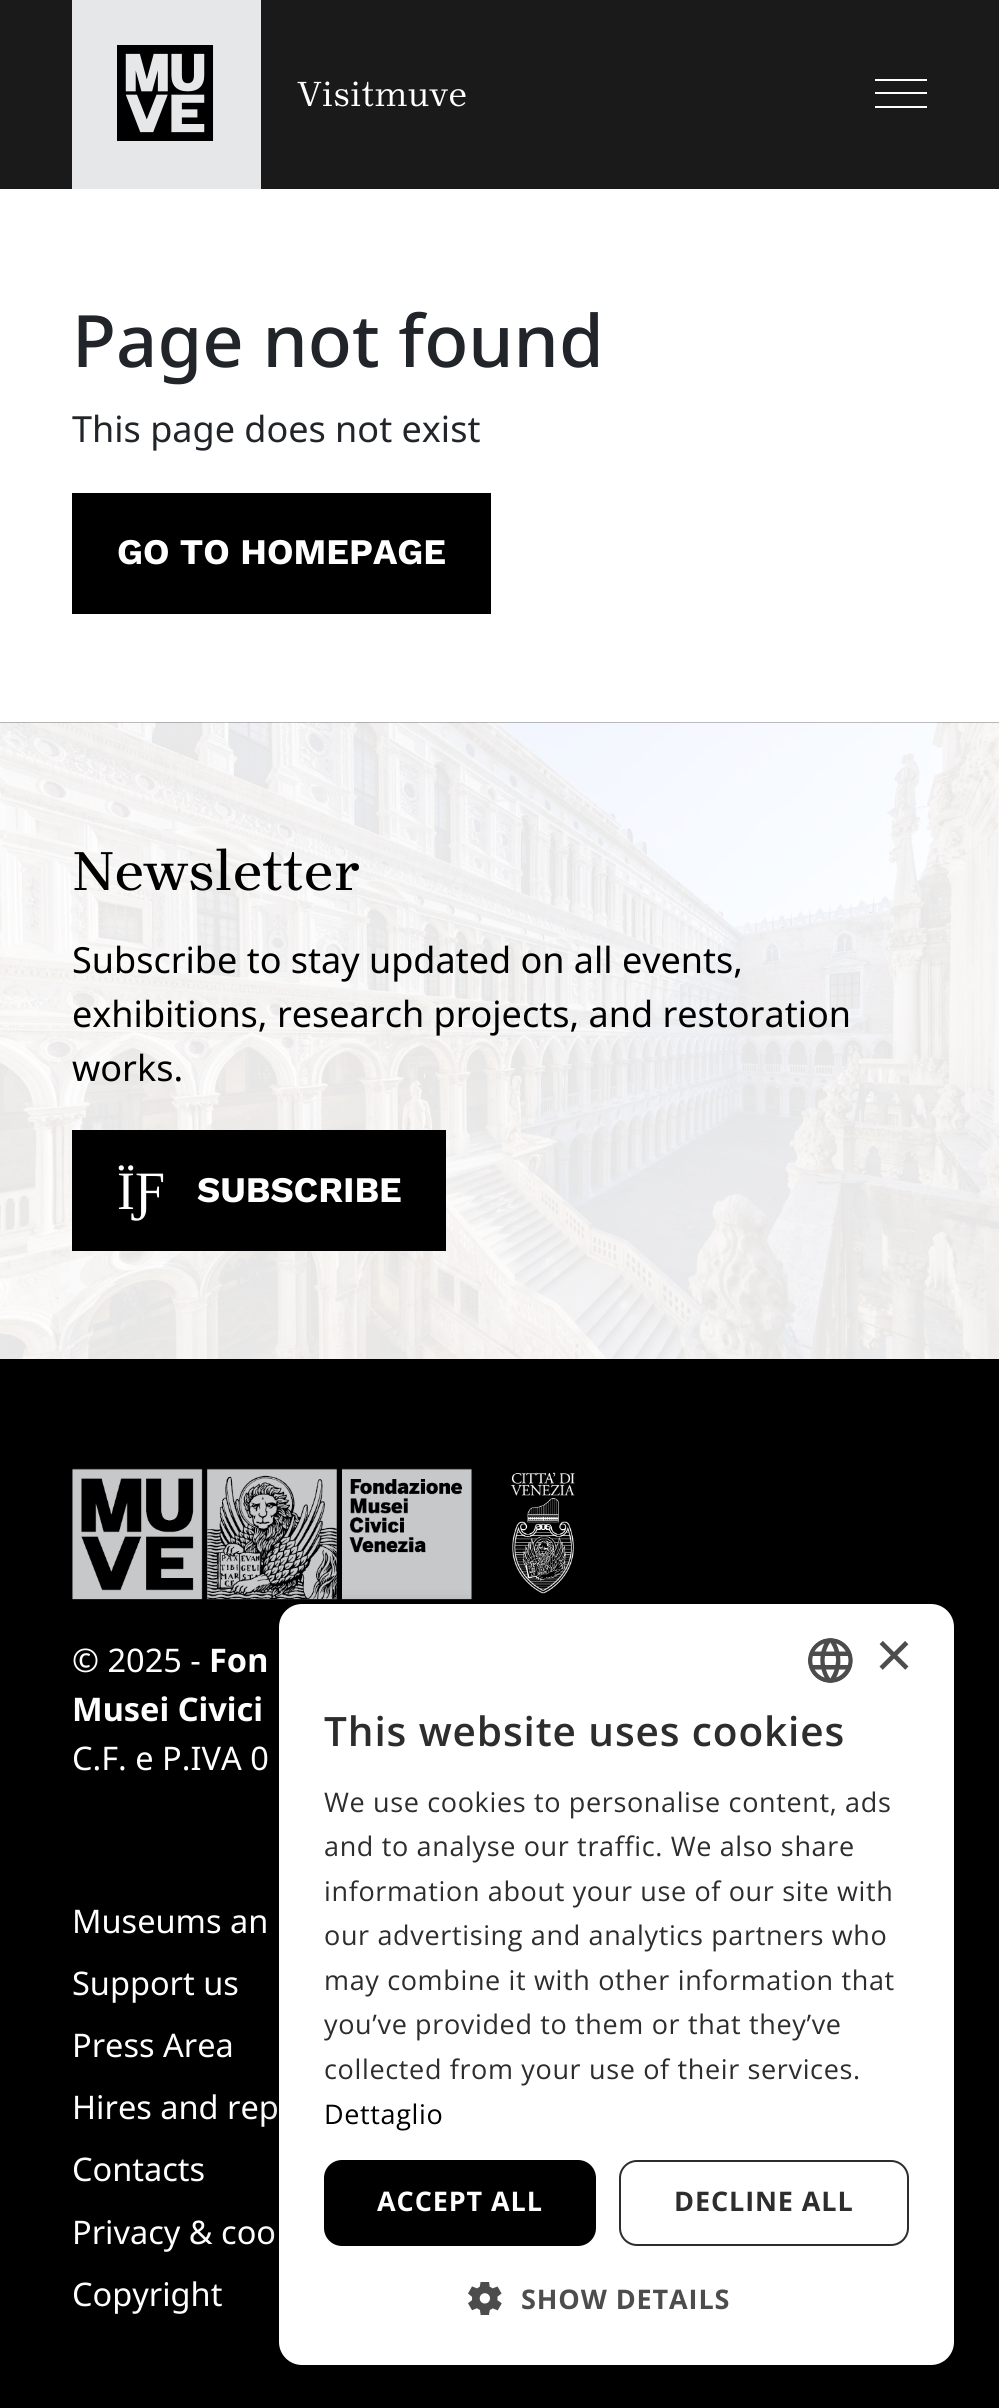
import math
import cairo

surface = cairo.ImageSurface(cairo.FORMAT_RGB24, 999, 2408)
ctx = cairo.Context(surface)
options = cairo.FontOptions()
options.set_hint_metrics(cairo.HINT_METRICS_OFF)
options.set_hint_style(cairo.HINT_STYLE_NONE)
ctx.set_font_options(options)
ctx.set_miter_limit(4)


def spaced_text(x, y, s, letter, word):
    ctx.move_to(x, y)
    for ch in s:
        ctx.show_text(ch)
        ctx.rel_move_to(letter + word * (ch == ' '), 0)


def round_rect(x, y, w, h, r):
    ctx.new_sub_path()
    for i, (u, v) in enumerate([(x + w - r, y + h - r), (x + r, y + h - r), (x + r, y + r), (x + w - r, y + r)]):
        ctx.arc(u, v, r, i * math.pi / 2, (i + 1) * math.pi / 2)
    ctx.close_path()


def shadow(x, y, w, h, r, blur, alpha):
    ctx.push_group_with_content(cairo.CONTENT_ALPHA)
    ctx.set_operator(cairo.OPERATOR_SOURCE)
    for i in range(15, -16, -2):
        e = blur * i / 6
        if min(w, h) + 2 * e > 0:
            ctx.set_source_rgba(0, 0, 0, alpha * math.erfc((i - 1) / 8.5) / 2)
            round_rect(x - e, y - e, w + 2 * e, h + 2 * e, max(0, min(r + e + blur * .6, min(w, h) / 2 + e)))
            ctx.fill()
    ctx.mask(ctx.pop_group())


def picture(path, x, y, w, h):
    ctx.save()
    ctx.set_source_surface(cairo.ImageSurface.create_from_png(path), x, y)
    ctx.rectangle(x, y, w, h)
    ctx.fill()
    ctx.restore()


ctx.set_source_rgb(1, 1, 1)
ctx.paint()
ctx.set_source_rgb(0.102, 0.102, 0.102)
ctx.rectangle(0, 0, 999, 189)
ctx.fill()
ctx.set_source_rgb(0.902, 0.906, 0.914)
ctx.rectangle(72, 0, 189, 189)
ctx.fill()
picture("img1.png", 117, 45, 97, 96)
ctx.select_font_face("Brygada 1918")
ctx.set_font_size(36)
ctx.set_source_rgb(1, 1, 1)
ctx.move_to(297, 106)
ctx.show_text("Visitmuve")
ctx.rectangle(875, 106, 52, 2)
ctx.fill()
ctx.rectangle(875, 79, 52, 2)
ctx.fill()
ctx.rectangle(875, 92, 52, 2)
ctx.fill()
ctx.select_font_face("Noto Sans Medium")
ctx.set_font_size(72.25)
ctx.set_source_rgb(0.129, 0.145, 0.161)
ctx.move_to(72, 367)
ctx.show_text("Page not found")
ctx.select_font_face("Noto Sans")
ctx.set_font_size(36)
ctx.move_to(72, 442)
ctx.show_text("This page does not exist")
ctx.set_source_rgb(0, 0, 0)
ctx.rectangle(72, 493, 419, 121)
ctx.fill()
ctx.select_font_face("Work Sans", cairo.FONT_SLANT_NORMAL, cairo.FONT_WEIGHT_BOLD)
ctx.set_source_rgb(1, 1, 1)
ctx.move_to(117, 564)
ctx.show_text("GO TO HOMEPAGE")
ctx.set_source_rgb(0, 0, 0)
ctx.rectangle(0, 722, 999, 1686)
ctx.fill()
picture("img2.png", 0, 722, 999, 637)
ctx.select_font_face("Brygada 1918 Medium")
ctx.set_font_size(56.5)
ctx.move_to(72, 890)
ctx.show_text("Newsletter")
ctx.select_font_face("Noto Sans")
ctx.set_font_size(36)
ctx.move_to(72, 973)
ctx.show_text("Subscribe to stay updated on all events,")
ctx.move_to(72, 1027)
ctx.show_text("exhibitions, research projects, and restoration")
ctx.move_to(72, 1081)
ctx.show_text("works.")
ctx.rectangle(72, 1130, 374, 121)
ctx.fill()
ctx.select_font_face("Liberation Serif")
ctx.set_font_size(54)
ctx.set_source_rgb(1, 1, 1)
ctx.move_to(117, 1209)
ctx.show_text("ÏƑ")
ctx.select_font_face("Work Sans", cairo.FONT_SLANT_NORMAL, cairo.FONT_WEIGHT_BOLD)
ctx.set_font_size(36)
ctx.move_to(197, 1202)
ctx.show_text("SUBSCRIBE")
picture("img3.png", 72, 1468, 503, 132)
ctx.select_font_face("Noto Sans")
ctx.set_font_size(32.5)
ctx.move_to(72, 1672)
ctx.show_text("© 2025 -")
ctx.select_font_face("Noto Sans", cairo.FONT_SLANT_NORMAL, cairo.FONT_WEIGHT_BOLD)
ctx.move_to(209, 1672)
ctx.show_text("Fon")
ctx.move_to(72, 1721)
ctx.show_text("Musei Civici")
ctx.select_font_face("Noto Sans")
ctx.move_to(72, 1770)
ctx.show_text("C.F. e P.IVA 0")
ctx.move_to(72, 1933)
ctx.show_text("Museums an")
ctx.move_to(72, 1995)
ctx.show_text("Support us")
ctx.move_to(72, 2057)
ctx.show_text("Press Area")
ctx.move_to(72, 2119)
ctx.show_text("Hires and rep")
ctx.move_to(72, 2181)
ctx.show_text("Contacts")
ctx.move_to(72, 2244)
ctx.show_text("Privacy & coo")
ctx.move_to(72, 2306)
ctx.show_text("Copyright")
ctx.set_source_rgb(0, 0, 0)
shadow(281, 1609, 675, 760, 23, 9, 0.35)
ctx.set_source_rgb(1, 1, 1)
round_rect(279, 1604, 675, 761, 23)
ctx.fill()
picture("img4.png", 808, 1638, 45, 45)
ctx.select_font_face("Liberation Sans")
ctx.set_font_size(65)
ctx.set_source_rgb(0.302, 0.302, 0.302)
ctx.move_to(875, 1677)
ctx.show_text("×")
ctx.select_font_face("Open Sans SemiBold")
ctx.set_font_size(40.5)
ctx.set_source_rgb(0.176, 0.176, 0.176)
spaced_text(324, 1746, "This website uses cookies", 0.9, 0)
ctx.select_font_face("Open Sans")
ctx.set_font_size(27)
spaced_text(324, 1812, "We use cookies to personalise content, ads", 0.65, 0)
spaced_text(324, 1856, "and to analyse our traffic. We also share", 0.65, 0)
spaced_text(324, 1901, "information about your use of our site with", 0.65, 0)
spaced_text(324, 1945, "our advertising and analytics partners who", 0.65, 0)
spaced_text(324, 1990, "may combine it with other information that", 0.65, 0)
spaced_text(324, 2034, "you’ve provided to them or that they’ve", 0.65, 0)
spaced_text(324, 2079, "collected from your use of their services.", 0.65, 0)
ctx.set_source_rgb(0, 0, 0)
spaced_text(324, 2124, "Dettaglio", 0.65, 0)
round_rect(324, 2160, 272, 86, 18)
ctx.fill()
ctx.select_font_face("Open Sans", cairo.FONT_SLANT_NORMAL, cairo.FONT_WEIGHT_BOLD)
ctx.set_source_rgb(1, 1, 1)
spaced_text(377, 2211, "ACCEPT ALL", 0.9, 0)
round_rect(620, 2161, 288, 84, 17)
ctx.set_source_rgb(0.176, 0.176, 0.176)
ctx.stroke()
spaced_text(674, 2211, "DECLINE ALL", 0.9, 0)
picture("img5.png", 468, 2282, 34, 33)
ctx.set_source_rgb(0.302, 0.302, 0.302)
spaced_text(521, 2309, "SHOW DETAILS", 0.9, 0)
surface.write_to_png("page.png")
